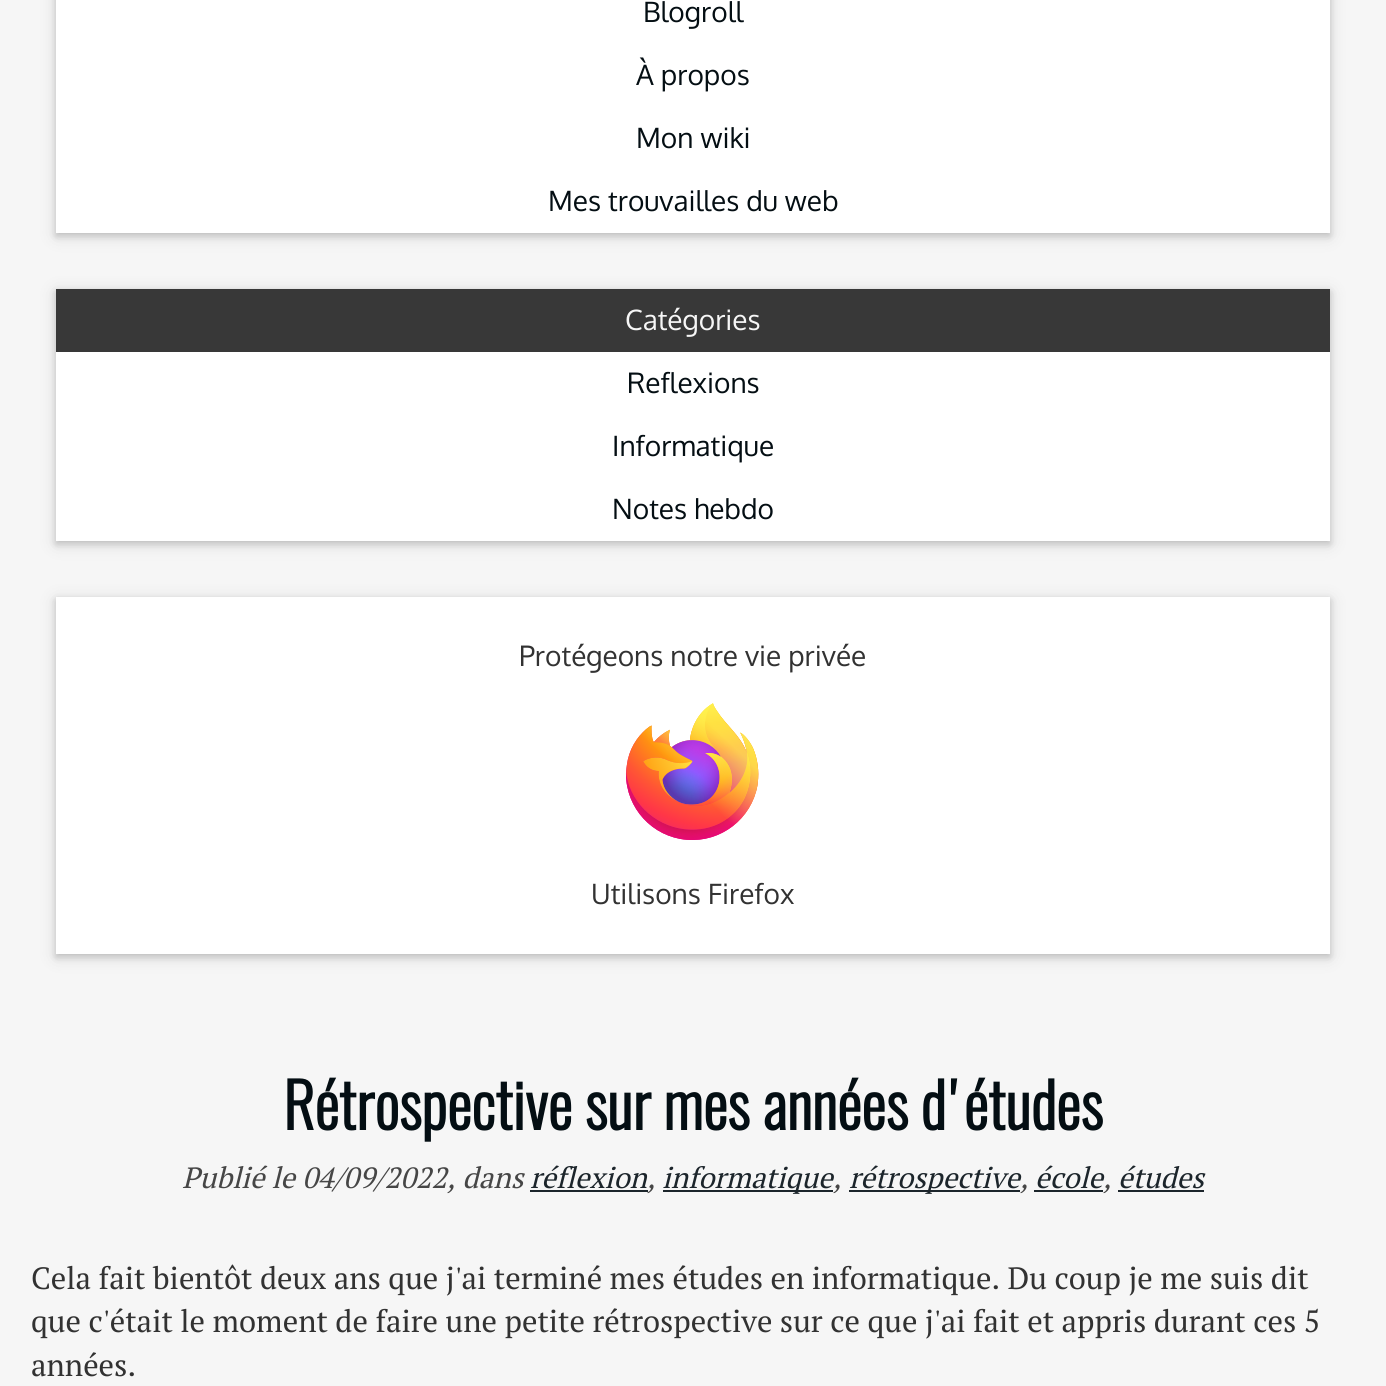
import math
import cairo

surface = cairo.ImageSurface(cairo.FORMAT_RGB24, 1386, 1386)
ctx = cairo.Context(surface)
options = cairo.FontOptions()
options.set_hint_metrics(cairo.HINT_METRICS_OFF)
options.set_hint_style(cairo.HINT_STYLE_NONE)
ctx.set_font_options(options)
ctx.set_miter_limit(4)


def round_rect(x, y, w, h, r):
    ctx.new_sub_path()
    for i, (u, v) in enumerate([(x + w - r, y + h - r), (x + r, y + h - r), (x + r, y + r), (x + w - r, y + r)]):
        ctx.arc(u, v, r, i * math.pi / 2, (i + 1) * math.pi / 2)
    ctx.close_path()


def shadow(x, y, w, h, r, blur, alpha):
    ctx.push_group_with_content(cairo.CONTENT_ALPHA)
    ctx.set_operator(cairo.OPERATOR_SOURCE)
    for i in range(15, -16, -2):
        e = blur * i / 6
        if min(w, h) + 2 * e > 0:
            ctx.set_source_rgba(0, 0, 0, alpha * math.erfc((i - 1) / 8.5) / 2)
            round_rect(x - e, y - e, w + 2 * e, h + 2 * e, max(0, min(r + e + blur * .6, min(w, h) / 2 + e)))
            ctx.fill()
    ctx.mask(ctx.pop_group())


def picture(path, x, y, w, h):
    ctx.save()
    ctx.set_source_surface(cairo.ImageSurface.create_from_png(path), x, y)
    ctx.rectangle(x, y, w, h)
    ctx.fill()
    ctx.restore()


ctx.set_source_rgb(0.961, 0.961, 0.961)
ctx.paint()
ctx.set_source_rgb(0, 0, 0)
shadow(56, -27, 1274, 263, 0, 9, 0.12)
shadow(56, -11, 1274, 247, 0, 3.5, 0.16)
ctx.set_source_rgb(1, 1, 1)
ctx.rectangle(56, 0, 1274, 233)
ctx.fill()
ctx.select_font_face("Oxygen")
ctx.set_font_size(28)
ctx.set_source_rgb(0.016, 0.055, 0.078)
ctx.move_to(643, 22)
ctx.show_text("Blogroll")
ctx.move_to(636, 85)
ctx.show_text("À propos")
ctx.move_to(636, 148)
ctx.show_text("Mon wiki")
ctx.move_to(548, 211)
ctx.show_text("Mes trouvailles du web")
ctx.set_source_rgb(0, 0, 0)
shadow(56, 292, 1274, 252, 0, 9, 0.12)
shadow(56, 292, 1274, 252, 0, 3.5, 0.16)
ctx.set_source_rgb(1, 1, 1)
ctx.rectangle(56, 352, 1274, 189)
ctx.fill()
ctx.set_source_rgb(0.22, 0.22, 0.22)
ctx.rectangle(56, 289, 1274, 63)
ctx.fill()
ctx.set_source_rgb(0.961, 0.961, 0.961)
ctx.move_to(625, 330)
ctx.show_text("Catégories")
ctx.set_source_rgb(0.016, 0.055, 0.078)
ctx.move_to(627, 393)
ctx.show_text("Reflexions")
ctx.move_to(612, 456)
ctx.show_text("Informatique")
ctx.move_to(612, 519)
ctx.show_text("Notes hebdo")
ctx.set_source_rgb(0, 0, 0)
shadow(56, 600, 1274, 357, 0, 9, 0.12)
shadow(56, 600, 1274, 357, 0, 3.5, 0.16)
ctx.set_source_rgb(1, 1, 1)
ctx.rectangle(56, 597, 1274, 357)
ctx.fill()
ctx.set_source_rgb(0.196, 0.196, 0.196)
ctx.move_to(519, 666)
ctx.show_text("Protégeons notre vie privée")
picture("img1.png", 625, 703, 134, 137)
ctx.move_to(591, 904)
ctx.show_text("Utilisons Firefox")
ctx.select_font_face("Oswald", cairo.FONT_SLANT_NORMAL, cairo.FONT_WEIGHT_BOLD)
ctx.set_font_size(61.6)
ctx.set_source_rgb(0.016, 0.055, 0.078)
ctx.move_to(283, 1130)
ctx.show_text("Rétrospective sur mes années d'études")
ctx.select_font_face("PT Serif", cairo.FONT_SLANT_ITALIC)
ctx.set_font_size(29.25)
ctx.set_source_rgb(0.275, 0.275, 0.275)
ctx.move_to(182, 1188)
ctx.show_text("Publié le 04/09/2022, dans")
ctx.set_source_rgb(0.11, 0.145, 0.169)
ctx.move_to(530, 1188)
ctx.show_text("réflexion")
ctx.rectangle(530, 1190, 118, 2)
ctx.fill()
ctx.set_source_rgb(0.275, 0.275, 0.275)
ctx.move_to(647, 1188)
ctx.show_text(",")
ctx.set_source_rgb(0.11, 0.145, 0.169)
ctx.rectangle(663, 1190, 170, 2)
ctx.fill()
ctx.move_to(662, 1188)
ctx.show_text("informatique")
ctx.set_source_rgb(0.275, 0.275, 0.275)
ctx.move_to(833, 1188)
ctx.show_text(",")
ctx.set_source_rgb(0.11, 0.145, 0.169)
ctx.rectangle(849, 1190, 171, 2)
ctx.fill()
ctx.move_to(849, 1188)
ctx.show_text("rétrospective")
ctx.set_source_rgb(0.275, 0.275, 0.275)
ctx.move_to(1020, 1188)
ctx.show_text(",")
ctx.set_source_rgb(0.11, 0.145, 0.169)
ctx.move_to(1035, 1188)
ctx.show_text("école")
ctx.rectangle(1034, 1190, 69, 2)
ctx.fill()
ctx.set_source_rgb(0.275, 0.275, 0.275)
ctx.move_to(1103, 1188)
ctx.show_text(",")
ctx.set_source_rgb(0.11, 0.145, 0.169)
ctx.move_to(1118, 1188)
ctx.show_text("études")
ctx.rectangle(1118, 1190, 86, 2)
ctx.fill()
ctx.select_font_face("PT Serif")
ctx.set_font_size(30.8)
ctx.set_source_rgb(0.196, 0.196, 0.196)
ctx.move_to(31, 1289)
ctx.show_text("Cela fait bientôt deux ans que j'ai terminé mes études en informatique. Du coup je me suis dit")
ctx.move_to(31, 1332)
ctx.show_text("que c'était le moment de faire une petite rétrospective sur ce que j'ai fait et appris durant ces 5")
ctx.move_to(31, 1376)
ctx.show_text("années.")
surface.write_to_png("page.png")
